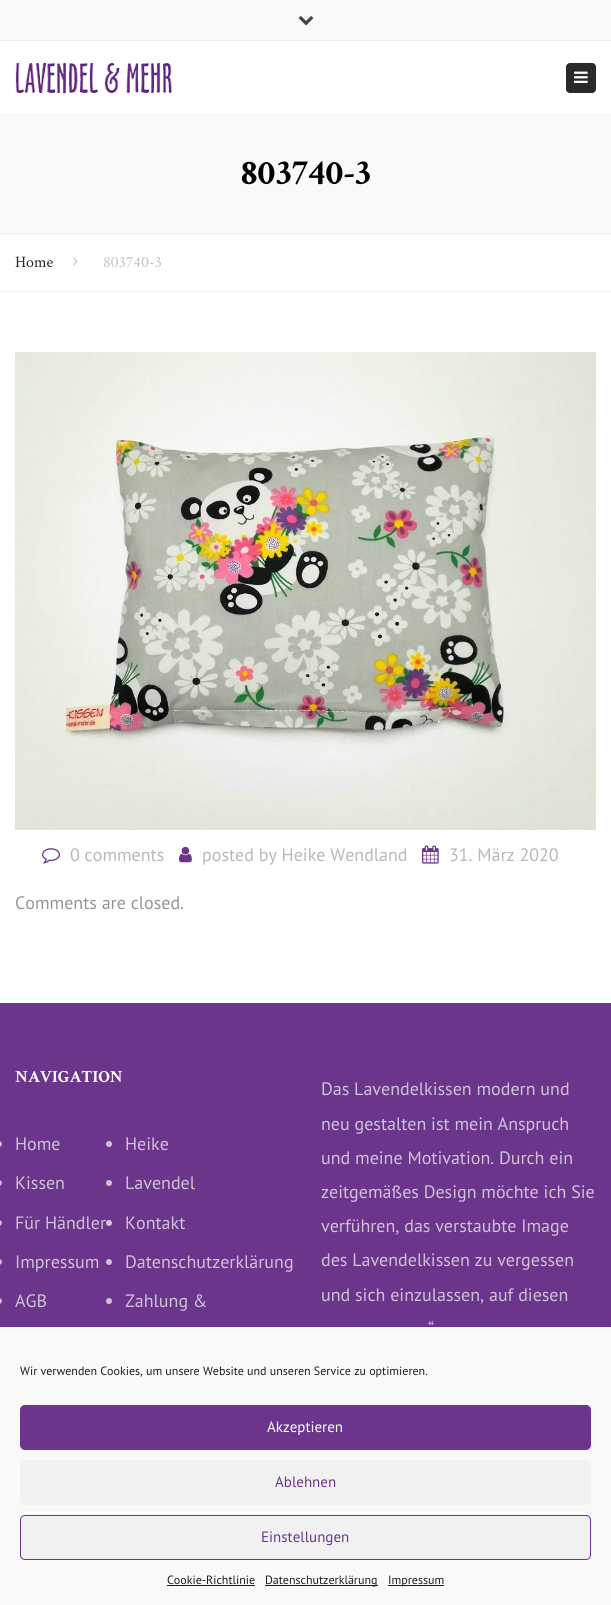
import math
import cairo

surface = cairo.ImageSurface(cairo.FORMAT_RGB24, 611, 1605)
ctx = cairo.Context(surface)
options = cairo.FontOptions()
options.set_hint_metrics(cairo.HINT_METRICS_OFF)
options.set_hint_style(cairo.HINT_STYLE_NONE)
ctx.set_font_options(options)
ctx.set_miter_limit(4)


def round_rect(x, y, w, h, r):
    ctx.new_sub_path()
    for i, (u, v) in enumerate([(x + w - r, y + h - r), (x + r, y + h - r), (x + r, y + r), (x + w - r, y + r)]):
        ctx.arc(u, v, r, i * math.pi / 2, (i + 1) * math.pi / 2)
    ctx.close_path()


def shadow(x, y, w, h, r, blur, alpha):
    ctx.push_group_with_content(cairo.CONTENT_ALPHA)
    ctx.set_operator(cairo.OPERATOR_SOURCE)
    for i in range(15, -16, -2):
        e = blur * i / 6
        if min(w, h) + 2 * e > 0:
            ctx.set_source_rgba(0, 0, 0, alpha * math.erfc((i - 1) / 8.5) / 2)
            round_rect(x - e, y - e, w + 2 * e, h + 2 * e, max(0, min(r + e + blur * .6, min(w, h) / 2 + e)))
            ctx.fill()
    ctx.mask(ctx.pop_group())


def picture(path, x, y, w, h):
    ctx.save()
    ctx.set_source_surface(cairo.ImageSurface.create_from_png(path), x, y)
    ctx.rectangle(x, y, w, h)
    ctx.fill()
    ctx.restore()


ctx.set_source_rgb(1, 1, 1)
ctx.paint()
ctx.set_source_rgb(0.976, 0.976, 0.976)
ctx.rectangle(0, 0, 611, 40)
ctx.fill()
ctx.set_source_rgb(0.929, 0.929, 0.929)
ctx.rectangle(0, 40, 611, 1)
ctx.fill()
picture("img1.png", 298, 16, 16, 10)
ctx.set_source_rgb(0.949, 0.949, 0.949)
ctx.rectangle(0, 114, 611, 1)
ctx.fill()
picture("img2.png", 15, 62, 157, 32)
ctx.set_source_rgb(0.161, 0.161, 0.161)
round_rect(566, 63, 30, 30, 4)
ctx.fill()
picture("img3.png", 574, 71, 14, 12)
ctx.set_source_rgb(0.973, 0.973, 0.973)
ctx.rectangle(0, 115, 611, 118)
ctx.fill()
ctx.set_source_rgb(0.929, 0.929, 0.929)
ctx.rectangle(0, 233, 611, 1)
ctx.fill()
ctx.select_font_face("Crimson Text", cairo.FONT_SLANT_NORMAL, cairo.FONT_WEIGHT_BOLD)
ctx.set_font_size(36)
ctx.set_source_rgb(0, 0, 0)
ctx.move_to(241, 184)
ctx.show_text("803740-3")
ctx.set_source_rgb(0.937, 0.937, 0.937)
ctx.rectangle(0, 291, 611, 1)
ctx.fill()
ctx.select_font_face("Crimson Text")
ctx.set_font_size(16)
ctx.set_source_rgb(0.161, 0.161, 0.161)
ctx.move_to(15, 267)
ctx.show_text("Home")
picture("img4.png", 73, 257, 5, 9)
ctx.set_source_rgb(0.765, 0.765, 0.765)
ctx.move_to(103, 267)
ctx.show_text("803740-3")
picture("img5.png", 15, 352, 581, 478)
picture("img6.png", 42, 848, 18, 16)
ctx.select_font_face("PT Sans")
ctx.set_font_size(18)
ctx.set_source_rgb(0.722, 0.722, 0.722)
ctx.move_to(70, 861)
ctx.show_text("0 comments")
picture("img7.png", 179, 846, 13, 17)
ctx.move_to(202, 861)
ctx.show_text("posted by Heike Wendland")
picture("img8.png", 422, 845, 17, 19)
ctx.move_to(449, 861)
ctx.show_text("31. März 2020")
ctx.set_source_rgb(0.584, 0.584, 0.584)
ctx.move_to(15, 909)
ctx.show_text("Comments are closed.")
ctx.set_source_rgb(0.424, 0.208, 0.549)
ctx.rectangle(0, 1003, 611, 324)
ctx.fill()
ctx.select_font_face("Crimson Text", cairo.FONT_SLANT_NORMAL, cairo.FONT_WEIGHT_BOLD)
ctx.set_font_size(17)
ctx.set_source_rgb(1, 1, 1)
ctx.move_to(15, 1082)
ctx.show_text("NAVIGATION")
ctx.set_source_rgb(0.808, 0.765, 0.831)
ctx.new_path()
ctx.move_to(0, 1141)
ctx.line_to(-1, 1141)
ctx.curve_to(0.5, 1141, 2, 1142.5, 2, 1144)
ctx.curve_to(2, 1145.5, 0.5, 1147, -1, 1147)
ctx.line_to(0, 1147)
ctx.close_path()
ctx.fill()
ctx.select_font_face("PT Sans")
ctx.set_font_size(18)
ctx.move_to(15, 1150)
ctx.show_text("Home")
ctx.new_path()
ctx.arc(109, 1144, 3, 0, 2 * math.pi)
ctx.fill()
ctx.move_to(125, 1150)
ctx.show_text("Heike")
ctx.new_path()
ctx.move_to(0, 1180)
ctx.line_to(-1, 1180)
ctx.curve_to(0.5, 1180, 2, 1181.5, 2, 1183)
ctx.curve_to(2, 1184.5, 0.5, 1186, -1, 1186)
ctx.line_to(0, 1186)
ctx.close_path()
ctx.fill()
ctx.move_to(15, 1189)
ctx.show_text("Kissen")
ctx.new_path()
ctx.arc(109, 1183, 3, 0, 2 * math.pi)
ctx.fill()
ctx.move_to(125, 1189)
ctx.show_text("Lavendel")
ctx.new_path()
ctx.move_to(0, 1220)
ctx.line_to(-1, 1220)
ctx.curve_to(0.5, 1220, 2, 1221.5, 2, 1223)
ctx.curve_to(2, 1224.5, 0.5, 1226, -1, 1226)
ctx.line_to(0, 1226)
ctx.close_path()
ctx.fill()
ctx.move_to(15, 1229)
ctx.show_text("Für Händler")
ctx.new_path()
ctx.arc(109, 1223, 3, 0, 2 * math.pi)
ctx.fill()
ctx.move_to(125, 1229)
ctx.show_text("Kontakt")
ctx.new_path()
ctx.move_to(0, 1259)
ctx.line_to(-1, 1259)
ctx.curve_to(0.5, 1259, 2, 1260.5, 2, 1262)
ctx.curve_to(2, 1263.5, 0.5, 1265, -1, 1265)
ctx.line_to(0, 1265)
ctx.close_path()
ctx.fill()
ctx.move_to(15, 1268)
ctx.show_text("Impressum")
ctx.new_path()
ctx.arc(109, 1262, 3, 0, 2 * math.pi)
ctx.fill()
ctx.move_to(125, 1268)
ctx.show_text("Datenschutzerklärung")
ctx.new_path()
ctx.move_to(0, 1298)
ctx.line_to(-1, 1298)
ctx.curve_to(0.5, 1298, 2, 1299.5, 2, 1301)
ctx.curve_to(2, 1302.5, 0.5, 1304, -1, 1304)
ctx.line_to(0, 1304)
ctx.close_path()
ctx.fill()
ctx.move_to(15, 1307)
ctx.show_text("AGB")
ctx.new_path()
ctx.arc(109, 1301, 3, 0, 2 * math.pi)
ctx.fill()
ctx.move_to(125, 1307)
ctx.show_text("Zahlung &")
ctx.move_to(321, 1095)
ctx.show_text("Das Lavendelkissen modern und")
ctx.move_to(321, 1130)
ctx.show_text("neu gestalten ist mein Anspruch")
ctx.move_to(321, 1164)
ctx.show_text("und meine Motivation. Durch ein")
ctx.move_to(321, 1198)
ctx.show_text("zeitgemäßes Design möchte ich Sie")
ctx.move_to(321, 1232)
ctx.show_text("verführen, das verstaubte Image")
ctx.move_to(321, 1266)
ctx.show_text("des Lavendelkissen zu vergessen")
ctx.move_to(321, 1301)
ctx.show_text("und sich einzulassen, auf diesen")
ctx.move_to(428, 1335)
ctx.show_text("“")
ctx.set_source_rgb(0, 0, 0)
shadow(0, 1337, 611, 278, 0, 10, 0.19)
ctx.set_source_rgb(0.976, 0.976, 0.976)
ctx.rectangle(0, 1328, 611, 277)
ctx.fill()
ctx.set_font_size(12)
ctx.set_source_rgb(0.098, 0.118, 0.137)
ctx.move_to(20, 1375)
ctx.show_text("Wir verwenden Cookies, um unsere Website und unseren Service zu optimieren.")
ctx.set_source_rgb(0.424, 0.208, 0.549)
round_rect(20.5, 1405.5, 570, 44, 4.5)
ctx.fill_preserve()
ctx.set_line_width(1)
ctx.stroke()
ctx.set_font_size(15)
ctx.set_source_rgb(1, 1, 1)
ctx.move_to(267, 1432)
ctx.show_text("Akzeptieren")
ctx.set_source_rgb(0.945, 0.945, 0.945)
round_rect(20, 1460, 571, 45, 5)
ctx.fill()
ctx.set_source_rgb(0.424, 0.208, 0.549)
ctx.move_to(275, 1487)
ctx.show_text("Ablehnen")
ctx.set_source_rgb(0.945, 0.945, 0.945)
round_rect(20.5, 1515.5, 570, 44, 4.5)
ctx.fill_preserve()
ctx.set_source_rgb(0.424, 0.208, 0.549)
ctx.stroke()
ctx.move_to(261, 1542)
ctx.show_text("Einstellungen")
ctx.set_font_size(12)
ctx.set_source_rgb(0.098, 0.118, 0.137)
ctx.move_to(167, 1584)
ctx.show_text("Cookie-Richtlinie")
ctx.rectangle(167, 1585, 88, 1)
ctx.fill()
ctx.rectangle(265, 1585, 113, 1)
ctx.fill()
ctx.move_to(265, 1584)
ctx.show_text("Datenschutzerklärung")
ctx.rectangle(388, 1585, 56, 1)
ctx.fill()
ctx.move_to(388, 1584)
ctx.show_text("Impressum")
surface.write_to_png("page.png")
